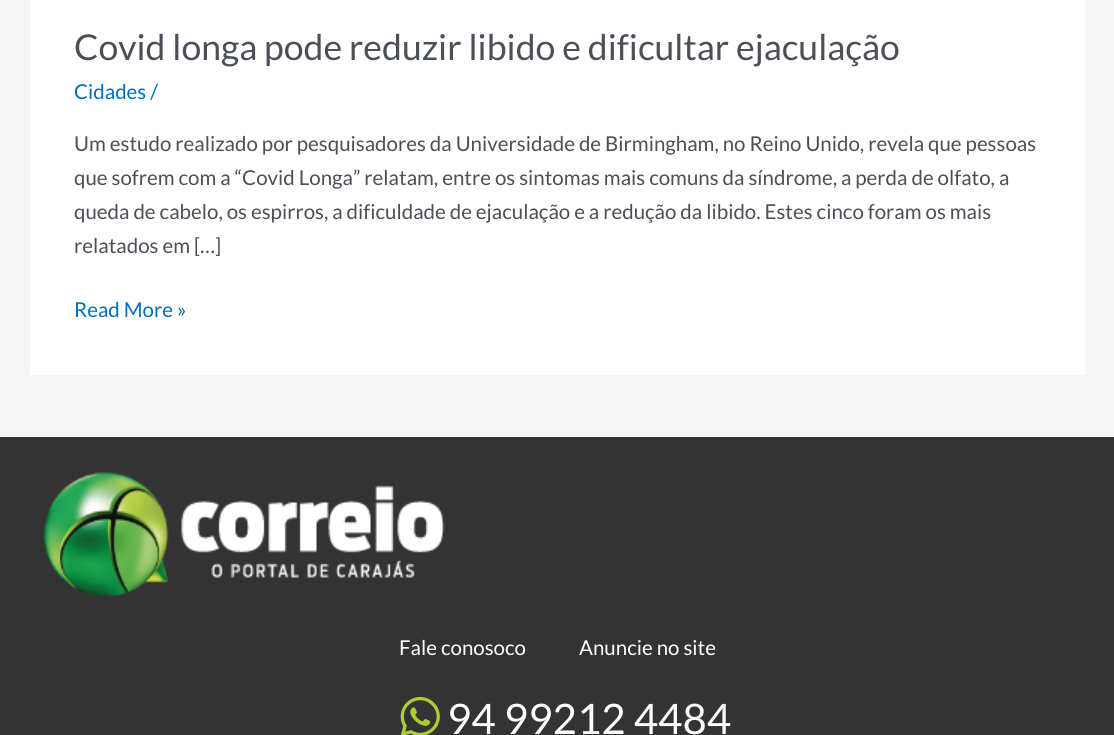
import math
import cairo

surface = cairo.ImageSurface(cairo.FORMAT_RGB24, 1114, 735)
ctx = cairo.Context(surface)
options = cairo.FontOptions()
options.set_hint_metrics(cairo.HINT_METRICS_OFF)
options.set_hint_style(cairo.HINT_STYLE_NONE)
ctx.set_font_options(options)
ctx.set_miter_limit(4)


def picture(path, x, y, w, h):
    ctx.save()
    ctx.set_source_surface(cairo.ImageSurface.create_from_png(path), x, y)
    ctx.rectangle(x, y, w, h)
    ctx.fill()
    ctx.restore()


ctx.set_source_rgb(0.961, 0.961, 0.961)
ctx.paint()
ctx.set_source_rgb(1, 1, 1)
ctx.rectangle(30, 0, 1055, 375)
ctx.fill()
ctx.select_font_face("Lato")
ctx.set_font_size(35.6)
ctx.set_source_rgb(0.294, 0.31, 0.345)
ctx.move_to(74, 60)
ctx.show_text("Covid longa pode reduzir libido e dificultar ejaculação")
ctx.set_font_size(20.5)
ctx.set_source_rgb(0.004, 0.439, 0.725)
ctx.move_to(74, 99)
ctx.show_text("Cidades /")
ctx.set_source_rgb(0.294, 0.31, 0.345)
ctx.move_to(74, 151)
ctx.show_text("Um estudo realizado por pesquisadores da Universidade de Birmingham, no Reino Unido, revela que pessoas")
ctx.move_to(74, 185)
ctx.show_text("que sofrem com a “Covid Longa” relatam, entre os sintomas mais comuns da síndrome, a perda de olfato, a")
ctx.move_to(74, 219)
ctx.show_text("queda de cabelo, os espirros, a dificuldade de ejaculação e a redução da libido. Estes cinco foram os mais")
ctx.move_to(74, 253)
ctx.show_text("relatados em […]")
ctx.set_source_rgb(0.004, 0.439, 0.725)
ctx.move_to(74, 317)
ctx.show_text("Read More »")
ctx.set_source_rgb(0.2, 0.2, 0.2)
ctx.rectangle(0, 437, 1114, 298)
ctx.fill()
picture("img1.png", 43, 472, 402, 125)
ctx.set_source_rgb(1, 1, 1)
ctx.move_to(399, 655)
ctx.show_text("Fale conosoco")
ctx.move_to(579, 655)
ctx.show_text("Anuncie no site")
picture("img2.png", 400, 696, 40, 39)
ctx.set_font_size(42)
ctx.move_to(447, 734)
ctx.show_text("94 99212 4484")
surface.write_to_png("page.png")
